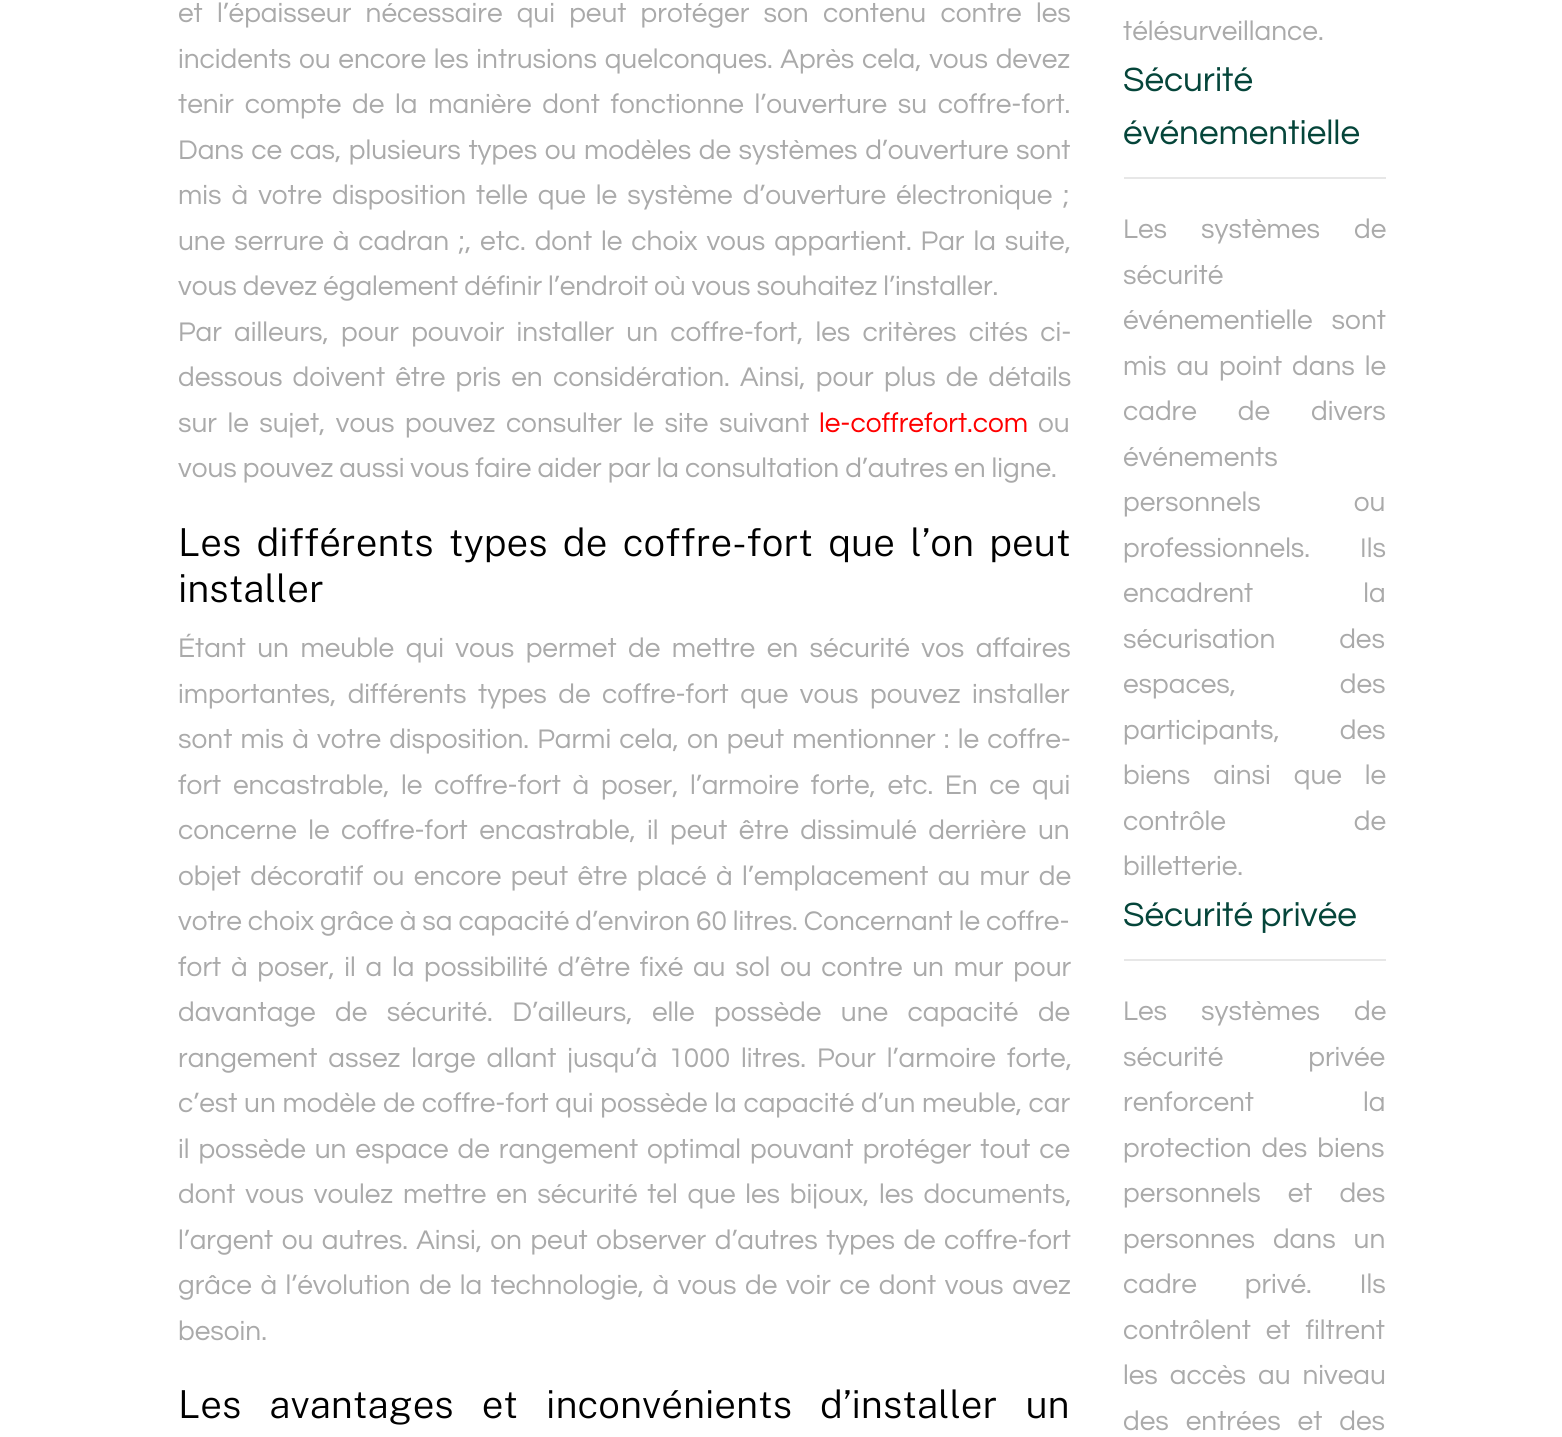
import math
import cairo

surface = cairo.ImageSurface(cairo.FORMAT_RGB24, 1562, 1437)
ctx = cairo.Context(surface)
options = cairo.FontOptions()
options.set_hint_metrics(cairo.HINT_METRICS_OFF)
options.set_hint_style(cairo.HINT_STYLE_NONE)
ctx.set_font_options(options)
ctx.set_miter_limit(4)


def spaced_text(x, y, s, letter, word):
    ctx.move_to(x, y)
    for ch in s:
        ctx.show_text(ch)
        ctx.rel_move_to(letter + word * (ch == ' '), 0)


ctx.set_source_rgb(1, 1, 1)
ctx.paint()
ctx.select_font_face("Questrial")
ctx.set_font_size(28)
ctx.set_source_rgb(0.667, 0.667, 0.667)
spaced_text(178, 22, "et l’épaisseur nécessaire qui peut protéger son contenu contre les", 0, 8.25)
spaced_text(178, 68, "incidents ou encore les intrusions quelconques. Après cela, vous devez", 0, 1.75)
spaced_text(178, 113, "tenir compte de la manière dont fonctionne l’ouverture su coffre-fort.", 0, 4.75)
spaced_text(178, 159, "Dans ce cas, plusieurs types ou modèles de systèmes d’ouverture sont", 0, 1.6)
spaced_text(178, 204, "mis à votre disposition telle que le système d’ouverture électronique ;", 0, 4)
spaced_text(178, 250, "une serrure à cadran ;, etc. dont le choix vous appartient. Par la suite,", 0, 3)
ctx.move_to(178, 295)
ctx.show_text("vous devez également définir l’endroit où vous souhaitez l’installer.")
spaced_text(178, 341, "Par ailleurs, pour pouvoir installer un coffre-fort, les critères cités ci-", 0, 6.25)
spaced_text(178, 386, "dessous doivent être pris en considération. Ainsi, pour plus de détails", 0, 4.25)
spaced_text(178, 432, "sur le sujet, vous pouvez consulter le site suivant", 0, 4.5)
ctx.set_source_rgb(1, 0, 0)
ctx.move_to(819, 432)
ctx.show_text("le-coffrefort.com")
ctx.set_source_rgb(0.667, 0.667, 0.667)
ctx.move_to(1038, 432)
ctx.show_text("ou")
ctx.move_to(178, 477)
ctx.show_text("vous pouvez aussi vous faire aider par la consultation d’autres en ligne.")
ctx.select_font_face("Public Sans Light")
ctx.set_font_size(38.5)
ctx.set_source_rgb(0, 0, 0)
spaced_text(178, 556, "Les différents types de coffre-fort que l’on peut", 0, 5.75)
ctx.move_to(178, 602)
ctx.show_text("installer")
ctx.select_font_face("Questrial")
ctx.set_font_size(28)
ctx.set_source_rgb(0.667, 0.667, 0.667)
spaced_text(178, 657, "Étant un meuble qui vous permet de mettre en sécurité vos affaires", 0, 5.5)
spaced_text(178, 703, "importantes, différents types de coffre-fort que vous pouvez installer", 0, 5.5)
spaced_text(178, 748, "sont mis à votre disposition. Parmi cela, on peut mentionner : le coffre-", 0, 2.25)
spaced_text(178, 794, "fort encastrable, le coffre-fort à poser, l’armoire forte, etc. En ce qui", 0, 5.75)
spaced_text(178, 839, "concerne le", 0, 5.5)
spaced_text(341, 839, "coffre-fort encastrable, il peut être dissimulé derrière un", 0, 5.5)
spaced_text(178, 885, "objet décoratif ou encore peut être placé à l’emplacement au mur de", 0, 3.4)
ctx.move_to(178, 930)
ctx.show_text("votre choix grâce à sa capacité d’environ 60 litres. Concernant le coffre-")
spaced_text(178, 976, "fort à poser, il a la possibilité d’être fixé au sol ou contre un mur pour", 0, 3.75)
spaced_text(178, 1021, "davantage de sécurité. D’ailleurs, elle possède une capacité de", 0, 13.5)
spaced_text(178, 1067, "rangement assez large allant jusqu’à 1000 litres. Pour l’armoire forte,", 0, 5)
spaced_text(178, 1112, "c’est un modèle de coffre-fort qui possède la capacité d’un meuble, car", 0, 0.75)
spaced_text(178, 1158, "il possède un espace de rangement optimal pouvant protéger tout ce", 0, 3)
spaced_text(178, 1203, "dont vous voulez mettre en sécurité tel que les bijoux, les documents,", 0, 3.75)
spaced_text(178, 1249, "l’argent ou autres. Ainsi, on peut observer d’autres types de coffre-fort", 0, 2.5)
spaced_text(178, 1294, "grâce à l’évolution de la technologie, à vous de voir ce dont vous avez", 0, 2.6)
ctx.move_to(178, 1340)
ctx.show_text("besoin.")
ctx.select_font_face("Public Sans Light")
ctx.set_font_size(38.5)
ctx.set_source_rgb(0, 0, 0)
spaced_text(178, 1418, "Les avantages et inconvénients d’installer un", 0, 18.5)
ctx.select_font_face("Questrial")
ctx.set_font_size(28)
ctx.set_source_rgb(0.667, 0.667, 0.667)
ctx.move_to(1123, 40)
ctx.show_text("télésurveillance.")
ctx.set_source_rgb(0.906, 0.906, 0.906)
ctx.rectangle(1124, 177, 262, 2)
ctx.fill()
ctx.set_font_size(35)
ctx.set_source_rgb(0.02, 0.271, 0.227)
ctx.move_to(1123, 91)
ctx.show_text("Sécurité")
ctx.move_to(1123, 144)
ctx.show_text("événementielle")
ctx.set_font_size(28)
ctx.set_source_rgb(0.667, 0.667, 0.667)
spaced_text(1123, 238, "Les systèmes de", 0, 28)
ctx.move_to(1123, 284)
ctx.show_text("sécurité")
spaced_text(1123, 329, "événementielle sont", 0, 13)
spaced_text(1123, 375, "mis au point dans le", 0, 4)
spaced_text(1123, 420, "cadre de divers", 0, 35)
ctx.move_to(1123, 466)
ctx.show_text("événements")
spaced_text(1123, 511, "personnels ou", 0, 87)
spaced_text(1123, 557, "professionnels. Ils", 0, 44)
spaced_text(1123, 602, "encadrent la", 0, 104)
spaced_text(1123, 648, "sécurisation des", 0, 58)
spaced_text(1123, 693, "espaces, des", 0, 98)
spaced_text(1123, 739, "participants, des", 0, 54)
spaced_text(1123, 784, "biens ainsi que le", 0, 17)
spaced_text(1123, 830, "contrôle de", 0, 122)
ctx.move_to(1123, 875)
ctx.show_text("billetterie.")
ctx.set_source_rgb(0.906, 0.906, 0.906)
ctx.rectangle(1124, 959, 262, 2)
ctx.fill()
ctx.set_font_size(35)
ctx.set_source_rgb(0.02, 0.271, 0.227)
ctx.move_to(1123, 926)
ctx.show_text("Sécurité privée")
ctx.set_font_size(28)
ctx.set_source_rgb(0.667, 0.667, 0.667)
spaced_text(1123, 1020, "Les systèmes de", 0, 28)
spaced_text(1123, 1066, "sécurité privée", 0, 79)
spaced_text(1123, 1111, "renforcent la", 0, 103)
spaced_text(1123, 1157, "protection des biens", 0, 4)
spaced_text(1123, 1202, "personnels et des", 0, 21)
spaced_text(1123, 1248, "personnes dans un", 0, 12)
spaced_text(1123, 1293, "cadre privé. Ils", 0, 42)
spaced_text(1123, 1339, "contrôlent et filtrent", 0, 9)
spaced_text(1123, 1384, "les accès au niveau", 0, 6)
spaced_text(1123, 1430, "des entrées et des", 0, 11)
surface.write_to_png("page.png")
